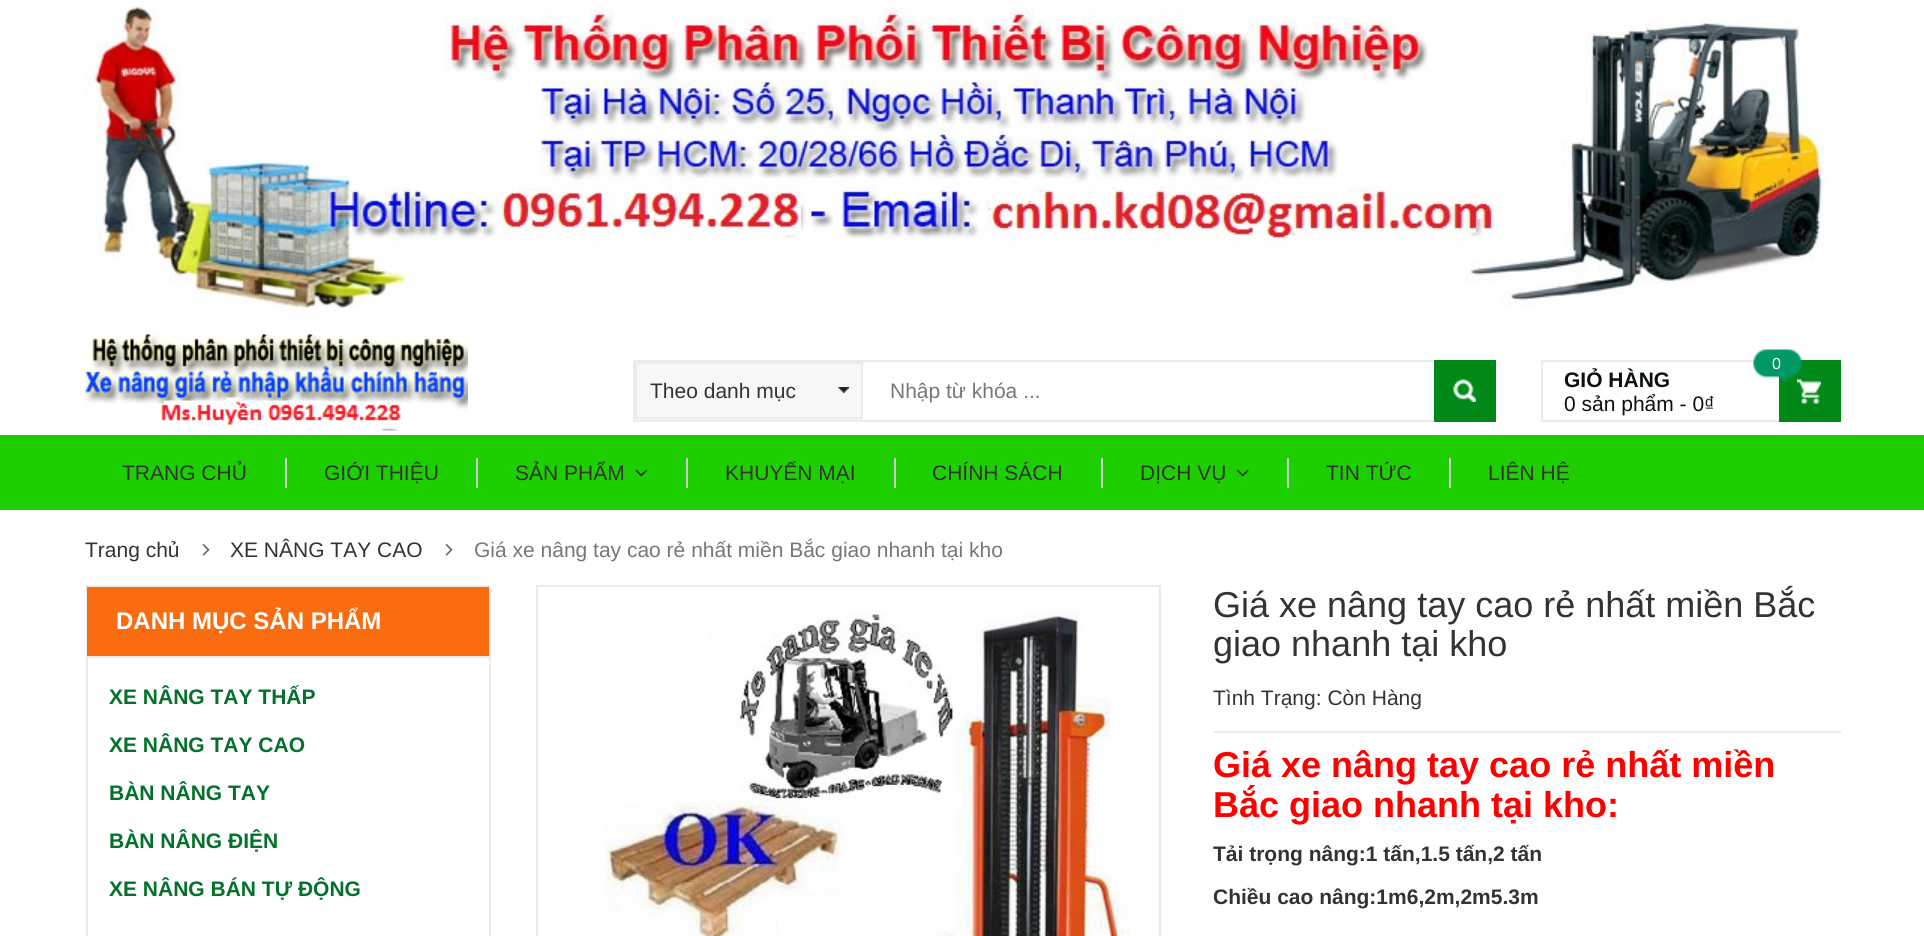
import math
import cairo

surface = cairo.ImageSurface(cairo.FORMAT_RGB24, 1924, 936)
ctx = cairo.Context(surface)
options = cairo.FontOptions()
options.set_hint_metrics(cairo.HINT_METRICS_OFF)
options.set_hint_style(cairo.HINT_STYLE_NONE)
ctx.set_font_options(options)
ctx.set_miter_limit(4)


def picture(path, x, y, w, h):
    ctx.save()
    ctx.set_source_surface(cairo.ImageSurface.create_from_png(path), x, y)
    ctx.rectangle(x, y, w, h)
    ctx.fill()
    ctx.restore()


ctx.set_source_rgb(1, 1, 1)
ctx.paint()
picture("img1.png", 85, 7, 1752, 309)
picture("img2.png", 85, 334, 383, 97)
ctx.rectangle(634, 361, 861, 60)
ctx.set_source_rgb(0.918, 0.918, 0.918)
ctx.stroke()
ctx.set_source_rgb(0.965, 0.965, 0.965)
ctx.rectangle(635, 364, 228, 56)
ctx.fill()
picture("img3.png", 838, 387, 11, 6)
ctx.rectangle(636, 363, 226, 55)
ctx.set_source_rgb(0.918, 0.918, 0.918)
ctx.stroke()
ctx.select_font_face("Liberation Sans")
ctx.set_font_size(21)
ctx.set_source_rgb(0.2, 0.2, 0.2)
ctx.move_to(650, 398)
ctx.show_text("Theo danh mục")
ctx.set_source_rgb(0.467, 0.467, 0.467)
ctx.move_to(890, 398)
ctx.show_text("Nhập từ khóa ...")
ctx.set_source_rgb(0, 0.537, 0.098)
ctx.rectangle(1434, 360, 62, 62)
ctx.fill()
picture("img4.png", 1453, 379, 23, 23)
ctx.rectangle(1542, 361, 298, 60)
ctx.set_source_rgb(0.918, 0.918, 0.918)
ctx.stroke()
ctx.select_font_face("Liberation Sans", cairo.FONT_SLANT_NORMAL, cairo.FONT_WEIGHT_BOLD)
ctx.set_source_rgb(0.043, 0.063, 0.075)
ctx.move_to(1564, 387)
ctx.show_text("GIỎ HÀNG")
ctx.set_source_rgb(0, 0.537, 0.098)
ctx.rectangle(1779, 360, 62, 62)
ctx.fill()
picture("img6.png", 1797, 379, 24, 25)
picture("img5.png", 1753, 349, 49, 34)
ctx.select_font_face("Liberation Sans")
ctx.set_font_size(16)
ctx.set_source_rgb(1, 1, 1)
ctx.move_to(1772, 369)
ctx.show_text("0")
ctx.set_font_size(21)
ctx.set_source_rgb(0.043, 0.063, 0.075)
ctx.move_to(1564, 411)
ctx.show_text("0 sản phẩm - 0₫")
ctx.set_source_rgb(0.118, 0.812, 0)
ctx.rectangle(0, 435, 1924, 75)
ctx.fill()
ctx.set_source_rgb(0.792, 0.792, 0.792)
ctx.rectangle(285, 458, 2, 30)
ctx.fill()
ctx.set_source_rgb(0.2, 0.2, 0.2)
ctx.move_to(122, 480)
ctx.show_text("TRANG CHỦ")
ctx.set_source_rgb(0.792, 0.792, 0.792)
ctx.rectangle(476, 458, 2, 30)
ctx.fill()
ctx.set_source_rgb(0.2, 0.2, 0.2)
ctx.move_to(324, 480)
ctx.show_text("GIỚI THIỆU")
ctx.set_source_rgb(0.792, 0.792, 0.792)
ctx.rectangle(686, 458, 2, 30)
ctx.fill()
ctx.set_source_rgb(0.2, 0.2, 0.2)
ctx.move_to(515, 480)
ctx.show_text("SẢN PHẨM")
picture("img7.png", 635, 469, 12, 8)
ctx.set_source_rgb(0.792, 0.792, 0.792)
ctx.rectangle(894, 458, 2, 30)
ctx.fill()
ctx.set_source_rgb(0.2, 0.2, 0.2)
ctx.move_to(725, 480)
ctx.show_text("KHUYẾN MẠI")
ctx.set_source_rgb(0.792, 0.792, 0.792)
ctx.rectangle(1101, 458, 2, 30)
ctx.fill()
ctx.set_source_rgb(0.2, 0.2, 0.2)
ctx.move_to(932, 480)
ctx.show_text("CHÍNH SÁCH")
ctx.set_source_rgb(0.792, 0.792, 0.792)
ctx.rectangle(1287, 458, 2, 30)
ctx.fill()
ctx.set_source_rgb(0.2, 0.2, 0.2)
ctx.move_to(1140, 480)
ctx.show_text("DỊCH VỤ")
picture("img8.png", 1237, 469, 12, 8)
ctx.set_source_rgb(0.792, 0.792, 0.792)
ctx.rectangle(1449, 458, 2, 30)
ctx.fill()
ctx.set_source_rgb(0.2, 0.2, 0.2)
ctx.move_to(1326, 480)
ctx.show_text("TIN TỨC")
ctx.move_to(1488, 480)
ctx.show_text("LIÊN HỆ")
ctx.move_to(85, 557)
ctx.show_text("Trang chủ")
picture("img9.png", 202, 544, 8, 12)
ctx.move_to(230, 557)
ctx.show_text("XE NÂNG TAY CAO")
picture("img9.png", 445, 544, 8, 12)
ctx.set_source_rgb(0.467, 0.467, 0.467)
ctx.move_to(474, 557)
ctx.show_text("Giá xe nâng tay cao rẻ nhất miền Bắc giao nhanh tại kho")
ctx.rectangle(87, 586, 403, 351)
ctx.set_source_rgb(0.918, 0.918, 0.918)
ctx.stroke()
ctx.set_source_rgb(0.976, 0.427, 0.063)
ctx.rectangle(87, 587, 402, 69)
ctx.fill()
ctx.set_source_rgb(0.918, 0.918, 0.918)
ctx.rectangle(87, 656, 402, 2)
ctx.fill()
ctx.select_font_face("Liberation Sans", cairo.FONT_SLANT_NORMAL, cairo.FONT_WEIGHT_BOLD)
ctx.set_font_size(24)
ctx.set_source_rgb(1, 1, 1)
ctx.move_to(116, 629)
ctx.show_text("DANH MỤC SẢN PHẨM")
ctx.set_font_size(21)
ctx.set_source_rgb(0.012, 0.443, 0.169)
ctx.move_to(109, 704)
ctx.show_text("XE NÂNG TAY THẤP")
ctx.move_to(109, 752)
ctx.show_text("XE NÂNG TAY CAO")
ctx.move_to(109, 800)
ctx.show_text("BÀN NÂNG TAY")
ctx.move_to(109, 848)
ctx.show_text("BÀN NÂNG ĐIỆN")
ctx.move_to(109, 896)
ctx.show_text("XE NÂNG BÁN TỰ ĐỘNG")
ctx.rectangle(537, 586, 623, 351)
ctx.set_source_rgb(0.918, 0.918, 0.918)
ctx.stroke()
picture("img10.png", 605, 602, 526, 334)
ctx.select_font_face("Liberation Sans")
ctx.set_font_size(36)
ctx.set_source_rgb(0.2, 0.2, 0.2)
ctx.move_to(1213, 617)
ctx.show_text("Giá xe nâng tay cao rẻ nhất miền Bắc")
ctx.move_to(1213, 656)
ctx.show_text("giao nhanh tại kho")
ctx.set_source_rgb(0.918, 0.918, 0.918)
ctx.rectangle(1214, 731, 627, 2)
ctx.fill()
ctx.set_font_size(21)
ctx.set_source_rgb(0.2, 0.2, 0.2)
ctx.move_to(1213, 705)
ctx.show_text("Tình Trạng: Còn Hàng")
ctx.select_font_face("Liberation Sans", cairo.FONT_SLANT_NORMAL, cairo.FONT_WEIGHT_BOLD)
ctx.set_font_size(36)
ctx.set_source_rgb(1, 0, 0)
ctx.move_to(1213, 777)
ctx.show_text("Giá xe nâng tay cao rẻ nhất miền")
ctx.move_to(1213, 817)
ctx.show_text("Bắc giao nhanh tại kho:")
ctx.set_font_size(21)
ctx.set_source_rgb(0.2, 0.2, 0.2)
ctx.move_to(1213, 861)
ctx.show_text("Tải trọng nâng:1 tấn,1.5 tấn,2 tấn")
ctx.move_to(1213, 904)
ctx.show_text("Chiều cao nâng:1m6,2m,2m5.3m")
surface.write_to_png("page.png")
